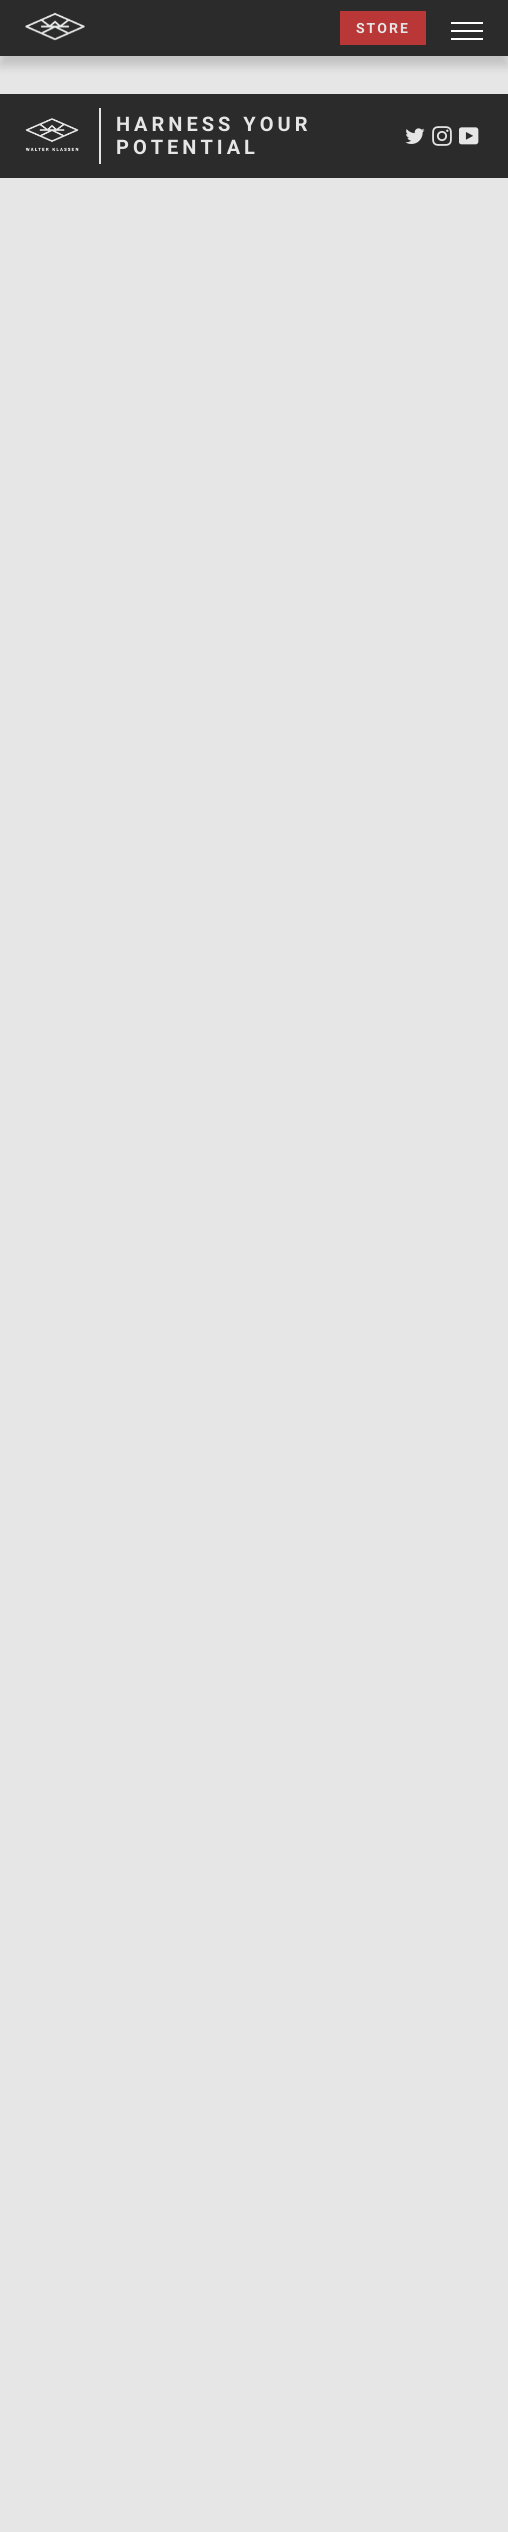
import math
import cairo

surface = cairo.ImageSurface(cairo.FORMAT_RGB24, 508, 2532)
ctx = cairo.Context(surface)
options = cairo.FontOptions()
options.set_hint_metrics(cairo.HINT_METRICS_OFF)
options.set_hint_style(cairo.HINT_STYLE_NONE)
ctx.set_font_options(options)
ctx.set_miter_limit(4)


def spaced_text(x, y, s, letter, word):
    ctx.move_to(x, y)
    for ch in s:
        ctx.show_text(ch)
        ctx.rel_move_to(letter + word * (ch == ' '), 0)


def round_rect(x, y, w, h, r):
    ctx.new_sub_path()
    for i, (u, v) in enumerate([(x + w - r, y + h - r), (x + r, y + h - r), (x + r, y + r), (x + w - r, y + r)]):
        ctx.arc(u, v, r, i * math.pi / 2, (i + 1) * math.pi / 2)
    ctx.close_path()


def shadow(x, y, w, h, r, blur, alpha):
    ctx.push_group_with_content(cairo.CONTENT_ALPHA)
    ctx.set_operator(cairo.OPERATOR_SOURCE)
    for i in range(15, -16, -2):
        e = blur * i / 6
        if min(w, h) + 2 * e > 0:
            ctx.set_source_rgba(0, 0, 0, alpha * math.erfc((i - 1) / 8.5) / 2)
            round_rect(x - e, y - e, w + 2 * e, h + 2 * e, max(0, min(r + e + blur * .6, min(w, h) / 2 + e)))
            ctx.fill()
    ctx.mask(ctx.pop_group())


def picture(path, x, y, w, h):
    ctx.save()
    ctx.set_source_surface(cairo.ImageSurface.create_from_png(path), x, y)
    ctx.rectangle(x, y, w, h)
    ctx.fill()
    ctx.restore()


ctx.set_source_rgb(0.902, 0.902, 0.902)
ctx.paint()
ctx.set_source_rgb(0, 0, 0)
shadow(0, 10, 508, 56, 0, 5, 0.16)
ctx.set_source_rgb(0.169, 0.169, 0.169)
ctx.rectangle(0, 0, 508, 56)
ctx.fill()
picture("img1.png", 25, 12, 60, 29)
ctx.set_source_rgb(0.725, 0.216, 0.216)
ctx.rectangle(340, 11, 86, 34)
ctx.fill()
ctx.select_font_face("Roboto", cairo.FONT_SLANT_NORMAL, cairo.FONT_WEIGHT_BOLD)
ctx.set_font_size(14)
ctx.set_source_rgb(0.902, 0.902, 0.902)
spaced_text(356, 33, "STORE", 2, 0)
ctx.set_source_rgb(1, 1, 1)
ctx.rectangle(451, 22, 32, 2)
ctx.fill()
ctx.rectangle(451, 30, 32, 2)
ctx.fill()
ctx.rectangle(451, 38, 32, 2)
ctx.fill()
ctx.set_source_rgb(0.169, 0.169, 0.169)
ctx.rectangle(0, 94, 508, 84)
ctx.fill()
picture("img2.png", 25, 118, 54, 34)
ctx.set_source_rgb(0.902, 0.902, 0.902)
ctx.rectangle(99, 108, 2, 56)
ctx.fill()
ctx.set_font_size(20)
spaced_text(116, 131, "HARNESS YOUR", 4, 0)
spaced_text(116, 154, "POTENTIAL", 4, 0)
picture("img3.png", 405, 128, 20, 16)
picture("img4.png", 432, 126, 20, 20)
picture("img5.png", 459, 127, 20, 18)
surface.write_to_png("page.png")
